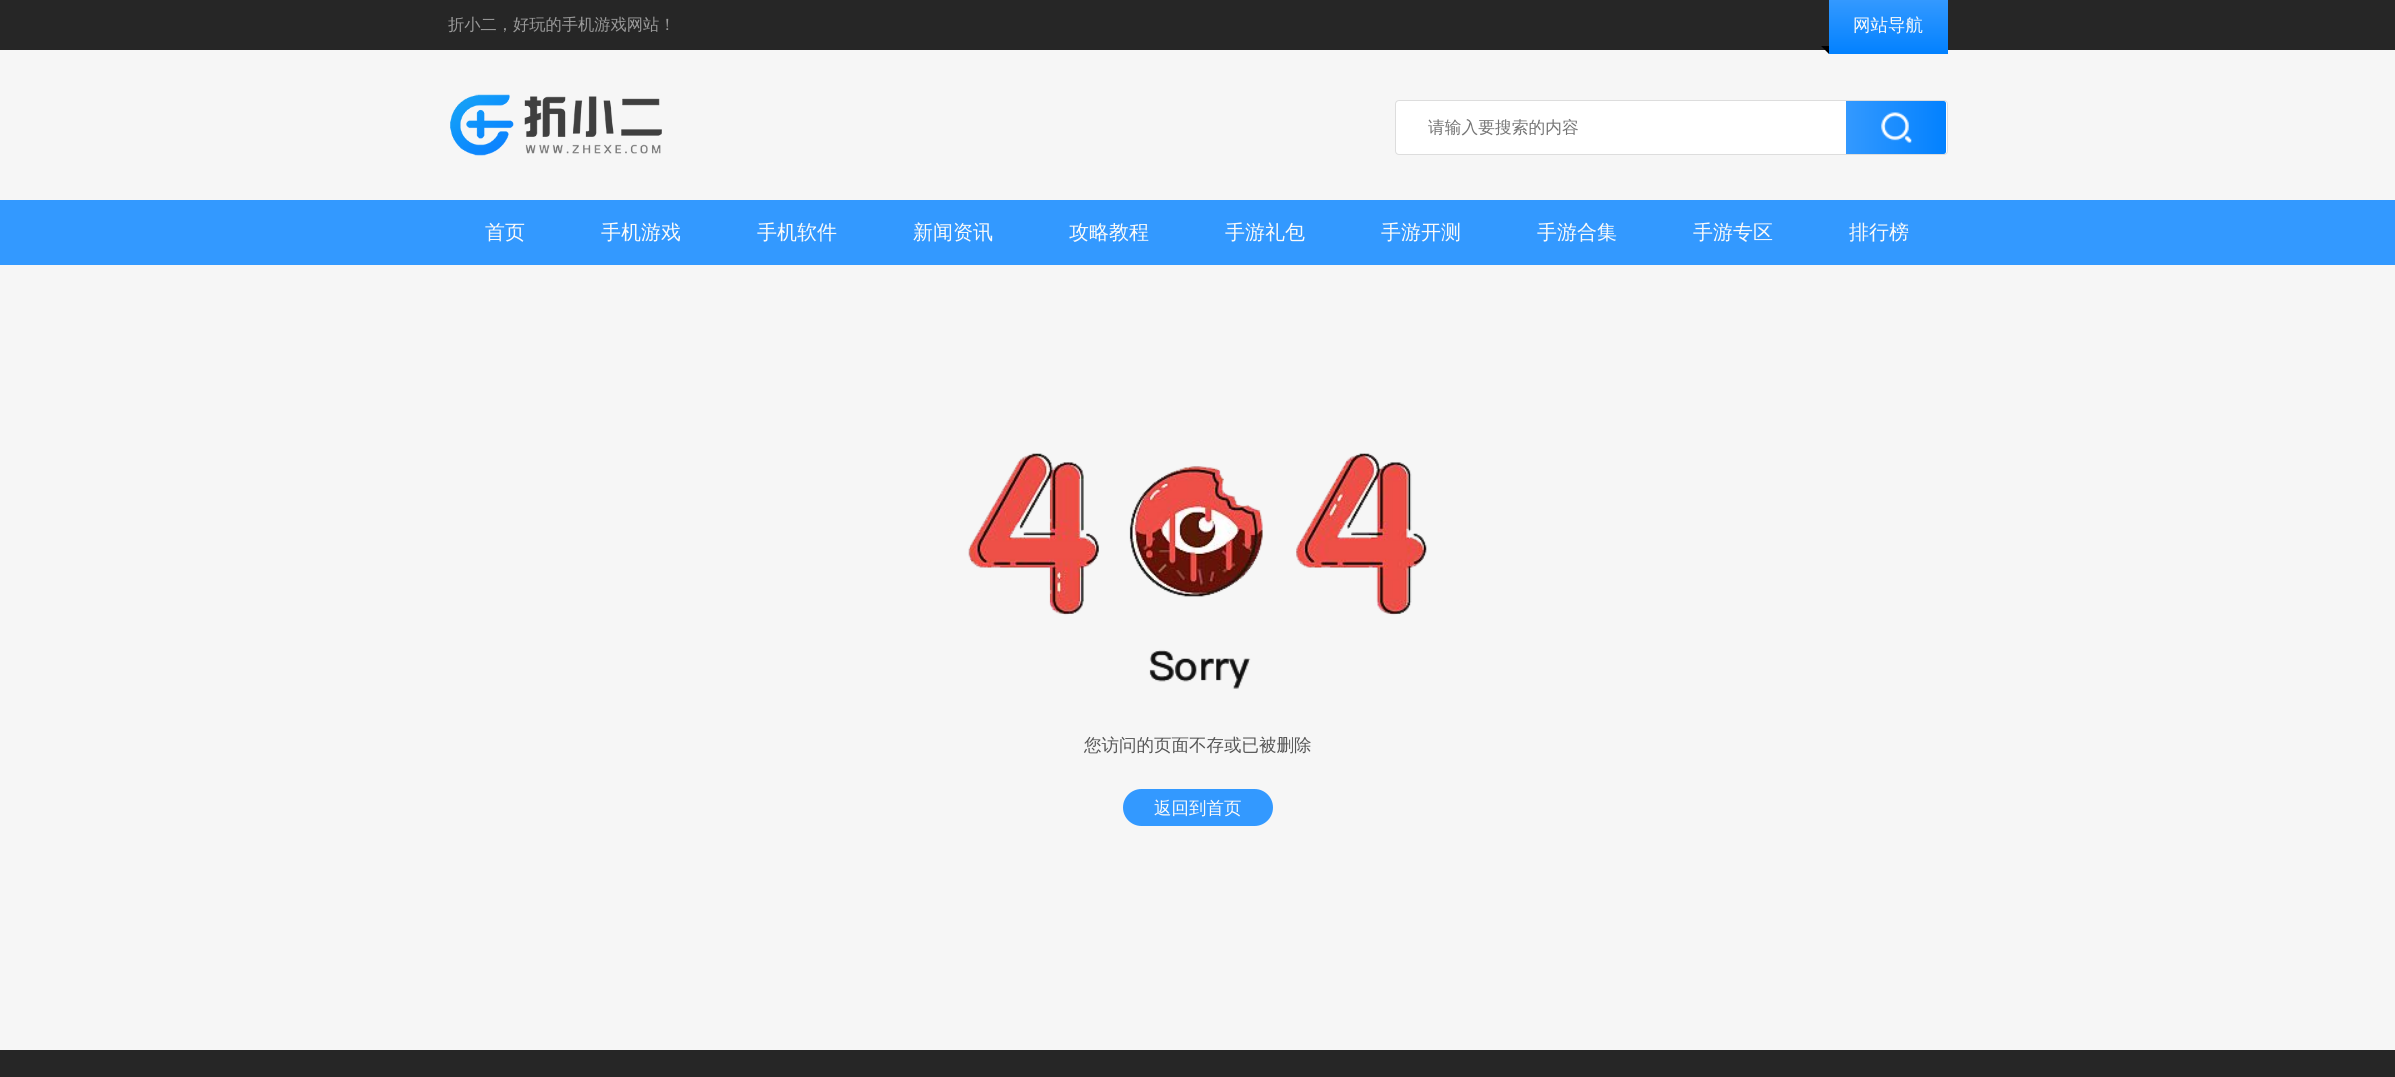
import math
import cairo

surface = cairo.ImageSurface(cairo.FORMAT_RGB24, 2395, 1077)
ctx = cairo.Context(surface)
options = cairo.FontOptions()
options.set_hint_metrics(cairo.HINT_METRICS_OFF)
options.set_hint_style(cairo.HINT_STYLE_NONE)
ctx.set_font_options(options)
ctx.set_miter_limit(4)


def round_rect(x, y, w, h, r):
    ctx.new_sub_path()
    for i, (u, v) in enumerate([(x + w - r, y + h - r), (x + r, y + h - r), (x + r, y + r), (x + w - r, y + r)]):
        ctx.arc(u, v, r, i * math.pi / 2, (i + 1) * math.pi / 2)
    ctx.close_path()


def picture(path, x, y, w, h):
    ctx.save()
    ctx.set_source_surface(cairo.ImageSurface.create_from_png(path), x, y)
    ctx.rectangle(x, y, w, h)
    ctx.fill()
    ctx.restore()


ctx.set_source_rgb(0.961, 0.961, 0.961)
ctx.paint()
ctx.set_source_rgb(0.149, 0.149, 0.149)
ctx.rectangle(0, 0, 2395, 50)
ctx.fill()
ctx.select_font_face("WenQuanYi Zen Hei Medium")
ctx.set_font_size(16.25)
ctx.set_source_rgb(0.6, 0.6, 0.6)
ctx.move_to(448, 30)
ctx.show_text("折小二，好玩的手机游戏网站！")
gradient = cairo.LinearGradient(1888, 0, 1888, 54)
gradient.add_color_stop_rgba(0, 0.2, 0.6, 1, 1)
gradient.add_color_stop_rgba(1, 0.008, 0.506, 1, 1)
ctx.set_source(gradient)
ctx.rectangle(1829, 0, 119, 54)
ctx.fill()
ctx.set_font_size(17.5)
ctx.set_source_rgb(0.98, 0.98, 0.98)
ctx.move_to(1853, 31)
ctx.show_text("网站导航")
ctx.set_source_rgb(0, 0, 0)
ctx.new_path()
ctx.move_to(1829, 46)
ctx.line_to(1829, 54)
ctx.line_to(1821, 46)
ctx.close_path()
ctx.fill()
picture("img1.png", 450, 94, 212, 62)
ctx.set_source_rgb(1, 1, 1)
round_rect(1395.5, 100.5, 552, 54, 3.5)
ctx.fill_preserve()
ctx.set_source_rgb(0.867, 0.867, 0.867)
ctx.set_line_width(1)
ctx.stroke()
ctx.set_font_size(16.75)
ctx.set_source_rgb(0.459, 0.459, 0.459)
ctx.move_to(1428, 133)
ctx.show_text("请输入要搜索的内容")
gradient = cairo.LinearGradient(1846, 128, 1946, 128)
gradient.add_color_stop_rgba(0, 0.2, 0.6, 1, 1)
gradient.add_color_stop_rgba(1, 0.008, 0.506, 1, 1)
ctx.set_source(gradient)
ctx.new_path()
ctx.move_to(1846, 101)
ctx.line_to(1943.5, 101)
ctx.curve_to(1945, 101, 1946, 102, 1946, 103.5)
ctx.line_to(1946, 151.5)
ctx.curve_to(1946, 153, 1945, 154, 1943.5, 154)
ctx.line_to(1846, 154)
ctx.close_path()
ctx.fill()
picture("img2.png", 1881, 112, 31, 31)
ctx.set_source_rgb(0.2, 0.6, 1)
ctx.rectangle(0, 200, 2395, 65)
ctx.fill()
ctx.set_font_size(20)
ctx.set_source_rgb(0.98, 0.98, 0.98)
ctx.move_to(485, 239)
ctx.show_text("首页")
ctx.move_to(601, 239)
ctx.show_text("手机游戏")
ctx.move_to(757, 239)
ctx.show_text("手机软件")
ctx.move_to(913, 239)
ctx.show_text("新闻资讯")
ctx.move_to(1069, 239)
ctx.show_text("攻略教程")
ctx.move_to(1225, 239)
ctx.show_text("手游礼包")
ctx.move_to(1381, 239)
ctx.show_text("手游开测")
ctx.move_to(1537, 239)
ctx.show_text("手游合集")
ctx.move_to(1693, 239)
ctx.show_text("手游专区")
ctx.move_to(1849, 239)
ctx.show_text("排行榜")
picture("img3.png", 968, 453, 459, 236)
ctx.set_font_size(17.5)
ctx.set_source_rgb(0.333, 0.333, 0.333)
ctx.move_to(1084, 751)
ctx.show_text("您访问的页面不存或已被删除")
ctx.set_source_rgb(0.2, 0.6, 1)
round_rect(1123, 789, 150, 37, 18.5)
ctx.fill()
ctx.set_source_rgb(0.98, 0.98, 0.98)
ctx.move_to(1154, 814)
ctx.show_text("返回到首页")
ctx.set_source_rgb(0.149, 0.149, 0.149)
ctx.rectangle(0, 1050, 2395, 27)
ctx.fill()
surface.write_to_png("page.png")
